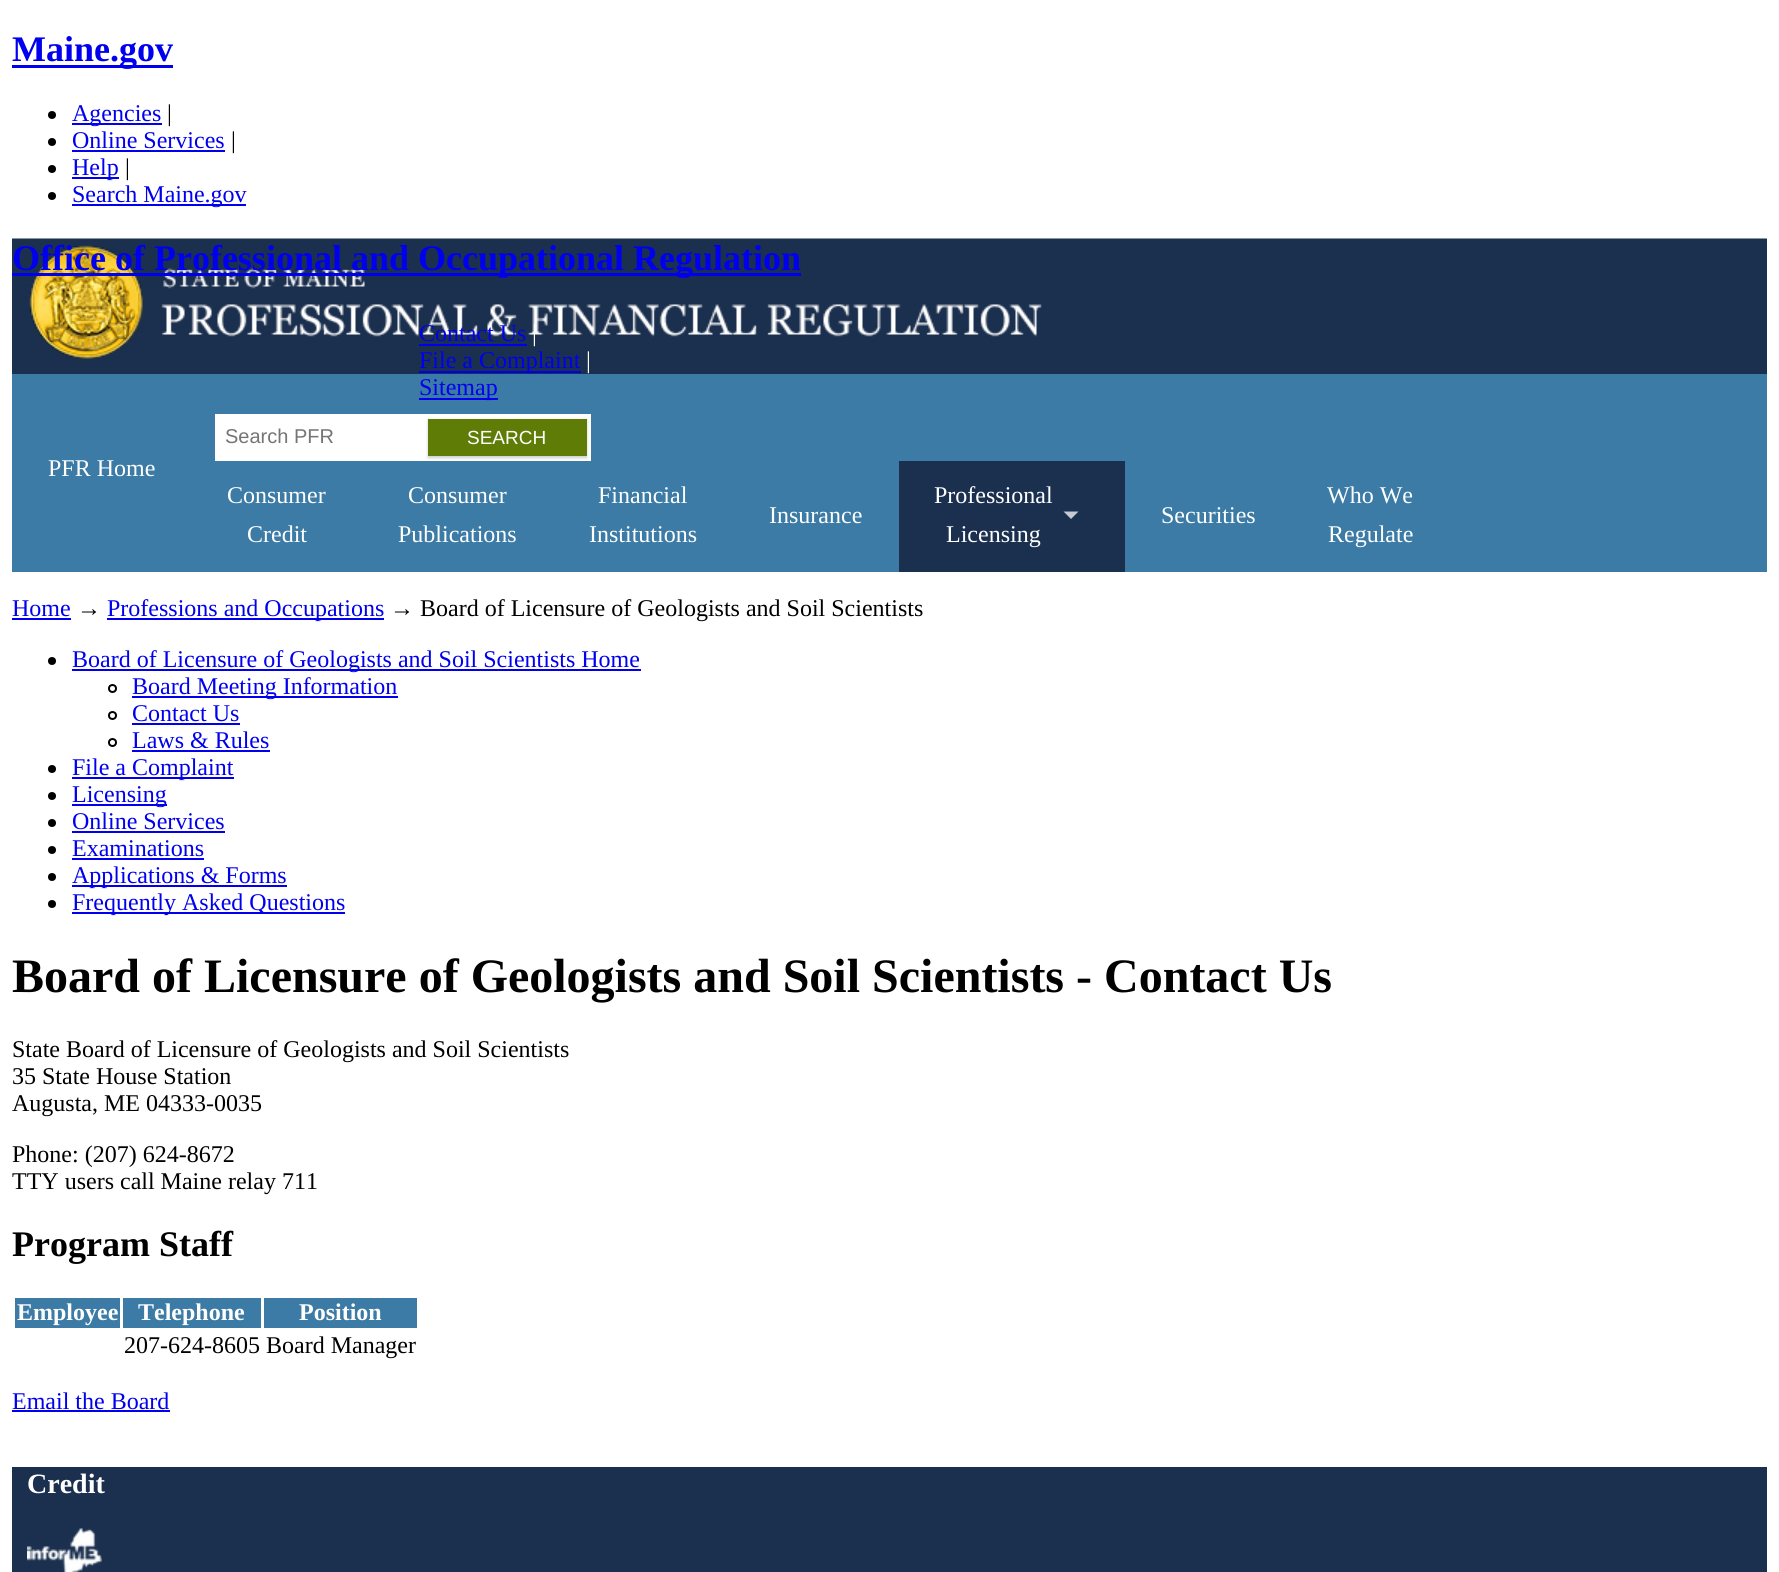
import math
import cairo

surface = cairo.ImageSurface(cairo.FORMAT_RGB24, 1779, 1572)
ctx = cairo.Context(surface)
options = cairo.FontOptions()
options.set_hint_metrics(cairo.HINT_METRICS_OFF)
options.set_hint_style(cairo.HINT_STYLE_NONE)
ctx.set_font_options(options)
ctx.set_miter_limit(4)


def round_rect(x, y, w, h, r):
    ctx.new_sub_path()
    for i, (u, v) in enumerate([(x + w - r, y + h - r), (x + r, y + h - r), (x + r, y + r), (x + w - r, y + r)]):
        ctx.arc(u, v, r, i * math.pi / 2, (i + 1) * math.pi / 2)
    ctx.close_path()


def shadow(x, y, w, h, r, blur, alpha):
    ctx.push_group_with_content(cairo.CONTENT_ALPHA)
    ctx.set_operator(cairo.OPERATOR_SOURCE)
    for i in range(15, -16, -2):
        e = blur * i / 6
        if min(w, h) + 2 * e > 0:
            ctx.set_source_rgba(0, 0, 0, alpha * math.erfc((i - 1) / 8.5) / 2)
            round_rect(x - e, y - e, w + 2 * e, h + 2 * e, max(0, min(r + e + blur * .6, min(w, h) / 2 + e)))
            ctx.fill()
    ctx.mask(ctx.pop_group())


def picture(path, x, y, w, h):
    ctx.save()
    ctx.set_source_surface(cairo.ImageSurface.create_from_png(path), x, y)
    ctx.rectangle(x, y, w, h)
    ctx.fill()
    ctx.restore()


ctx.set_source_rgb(1, 1, 1)
ctx.paint()
ctx.set_source_rgb(0, 0, 0.933)
ctx.rectangle(12, 65, 161, 3)
ctx.fill()
ctx.select_font_face("Liberation Serif", cairo.FONT_SLANT_NORMAL, cairo.FONT_WEIGHT_BOLD)
ctx.set_font_size(36)
ctx.move_to(12, 61)
ctx.show_text("Maine.gov")
ctx.set_source_rgb(0, 0, 0)
ctx.new_path()
ctx.arc(52, 115, 4, 0, 2 * math.pi)
ctx.fill()
ctx.set_source_rgb(0, 0, 0.933)
ctx.rectangle(72, 123, 90, 2)
ctx.fill()
ctx.select_font_face("Liberation Serif")
ctx.set_font_size(24)
ctx.move_to(72, 121)
ctx.show_text("Agencies")
ctx.set_source_rgb(0, 0, 0)
ctx.move_to(167, 121)
ctx.show_text("|")
ctx.new_path()
ctx.arc(52, 142, 4, 0, 2 * math.pi)
ctx.fill()
ctx.set_source_rgb(0, 0, 0.933)
ctx.move_to(72, 148)
ctx.show_text("Online Services")
ctx.rectangle(72, 150, 153, 2)
ctx.fill()
ctx.set_source_rgb(0, 0, 0)
ctx.move_to(231, 148)
ctx.show_text("|")
ctx.new_path()
ctx.arc(52, 169, 4, 0, 2 * math.pi)
ctx.fill()
ctx.set_source_rgb(0, 0, 0.933)
ctx.rectangle(72, 177, 47, 2)
ctx.fill()
ctx.move_to(72, 175)
ctx.show_text("Help")
ctx.set_source_rgb(0, 0, 0)
ctx.move_to(125, 175)
ctx.show_text("|")
ctx.new_path()
ctx.arc(52, 196, 4, 0, 2 * math.pi)
ctx.fill()
ctx.set_source_rgb(0, 0, 0.933)
ctx.rectangle(72, 204, 174, 2)
ctx.fill()
ctx.move_to(72, 202)
ctx.show_text("Search Maine.gov")
ctx.set_source_rgb(0.106, 0.188, 0.31)
ctx.rectangle(12, 359, 1755, 15)
ctx.fill()
picture("img1.png", 12, 238, 1755, 121)
ctx.set_source_rgb(0, 0, 0.933)
ctx.rectangle(12, 273, 789, 3)
ctx.fill()
ctx.select_font_face("Liberation Serif", cairo.FONT_SLANT_NORMAL, cairo.FONT_WEIGHT_BOLD)
ctx.set_font_size(36)
ctx.move_to(12, 270)
ctx.show_text("Office of Professional and Occupational Regulation")
ctx.select_font_face("Liberation Serif")
ctx.set_font_size(24)
ctx.move_to(419, 341)
ctx.show_text("Contact Us")
ctx.rectangle(419, 344, 108, 2)
ctx.fill()
ctx.set_source_rgb(1, 1, 1)
ctx.move_to(532, 341)
ctx.show_text("|")
ctx.set_source_rgb(0, 0, 0.933)
ctx.rectangle(419, 371, 162, 2)
ctx.fill()
ctx.move_to(419, 368)
ctx.show_text("File a Complaint")
ctx.set_source_rgb(1, 1, 1)
ctx.move_to(586, 368)
ctx.show_text("|")
ctx.set_source_rgb(0.231, 0.482, 0.647)
ctx.rectangle(12, 374, 1755, 198)
ctx.fill()
ctx.set_source_rgb(0, 0, 0.933)
ctx.rectangle(419, 398, 79, 2)
ctx.fill()
ctx.move_to(419, 395)
ctx.show_text("Sitemap")
ctx.set_source_rgb(1, 1, 1)
ctx.rectangle(215, 414, 376, 47)
ctx.fill()
ctx.select_font_face("Liberation Sans")
ctx.set_font_size(20)
ctx.set_source_rgb(0.459, 0.459, 0.459)
ctx.move_to(225, 443)
ctx.show_text("Search PFR")
ctx.set_source_rgb(0, 0, 0)
shadow(428, 420, 159, 38, 0, 1.5, 0.2)
ctx.set_source_rgb(0.373, 0.486, 0.024)
ctx.rectangle(428, 419, 159, 37)
ctx.fill()
ctx.set_font_size(19)
ctx.set_source_rgb(1, 1, 1)
ctx.move_to(467, 444)
ctx.show_text("SEARCH")
ctx.select_font_face("Liberation Serif")
ctx.set_font_size(24)
ctx.move_to(48, 476)
ctx.show_text("PFR Home")
ctx.move_to(227, 503)
ctx.show_text("Consumer")
ctx.move_to(247, 542)
ctx.show_text("Credit")
ctx.move_to(408, 503)
ctx.show_text("Consumer")
ctx.move_to(398, 542)
ctx.show_text("Publications")
ctx.move_to(598, 503)
ctx.show_text("Financial")
ctx.move_to(589, 542)
ctx.show_text("Institutions")
ctx.move_to(769, 523)
ctx.show_text("Insurance")
ctx.set_source_rgb(0.106, 0.188, 0.31)
ctx.rectangle(899, 461, 226, 111)
ctx.fill()
ctx.set_source_rgb(1, 1, 1)
ctx.move_to(934, 503)
ctx.show_text("Professional")
ctx.set_source_rgb(0.776, 0.796, 0.827)
ctx.new_path()
ctx.move_to(1063.5, 511.5)
ctx.line_to(1078.5, 511.5)
ctx.line_to(1071, 519)
ctx.close_path()
ctx.fill()
ctx.set_source_rgb(1, 1, 1)
ctx.move_to(946, 542)
ctx.show_text("Licensing")
ctx.move_to(1161, 523)
ctx.show_text("Securities")
ctx.move_to(1327, 503)
ctx.show_text("Who We")
ctx.move_to(1328, 542)
ctx.show_text("Regulate")
ctx.set_source_rgb(0, 0, 0.933)
ctx.move_to(12, 616)
ctx.show_text("Home")
ctx.rectangle(12, 618, 59, 2)
ctx.fill()
ctx.set_source_rgb(0, 0, 0)
ctx.move_to(77, 616)
ctx.show_text("→")
ctx.set_source_rgb(0, 0, 0.933)
ctx.rectangle(107, 618, 277, 2)
ctx.fill()
ctx.move_to(107, 616)
ctx.show_text("Professions and Occupations")
ctx.set_source_rgb(0, 0, 0)
ctx.move_to(390, 616)
ctx.show_text("→ Board of Licensure of Geologists and Soil Scientists")
ctx.new_path()
ctx.arc(52, 661, 4, 0, 2 * math.pi)
ctx.fill()
ctx.set_source_rgb(0, 0, 0.933)
ctx.rectangle(72, 669, 569, 2)
ctx.fill()
ctx.move_to(72, 667)
ctx.show_text("Board of Licensure of Geologists and Soil Scientists Home")
ctx.new_path()
ctx.arc(112.5, 688.5, 3.5, 0, 2 * math.pi)
ctx.set_source_rgb(0, 0, 0)
ctx.stroke()
ctx.set_source_rgb(0, 0, 0.933)
ctx.rectangle(132, 696, 266, 2)
ctx.fill()
ctx.move_to(132, 694)
ctx.show_text("Board Meeting Information")
ctx.new_path()
ctx.arc(112.5, 715.5, 3.5, 0, 2 * math.pi)
ctx.set_source_rgb(0, 0, 0)
ctx.stroke()
ctx.set_source_rgb(0, 0, 0.933)
ctx.move_to(132, 721)
ctx.show_text("Contact Us")
ctx.rectangle(132, 723, 108, 2)
ctx.fill()
ctx.arc(112.5, 742.5, 3.5, 0, 2 * math.pi)
ctx.set_source_rgb(0, 0, 0)
ctx.stroke()
ctx.set_source_rgb(0, 0, 0.933)
ctx.move_to(132, 748)
ctx.show_text("Laws & Rules")
ctx.rectangle(132, 750, 138, 2)
ctx.fill()
ctx.set_source_rgb(0, 0, 0)
ctx.arc(52, 769, 4, 0, 2 * math.pi)
ctx.fill()
ctx.set_source_rgb(0, 0, 0.933)
ctx.rectangle(72, 777, 162, 2)
ctx.fill()
ctx.move_to(72, 775)
ctx.show_text("File a Complaint")
ctx.set_source_rgb(0, 0, 0)
ctx.new_path()
ctx.arc(52, 796, 4, 0, 2 * math.pi)
ctx.fill()
ctx.set_source_rgb(0, 0, 0.933)
ctx.rectangle(72, 804, 95, 2)
ctx.fill()
ctx.move_to(72, 802)
ctx.show_text("Licensing")
ctx.set_source_rgb(0, 0, 0)
ctx.new_path()
ctx.arc(52, 823, 4, 0, 2 * math.pi)
ctx.fill()
ctx.set_source_rgb(0, 0, 0.933)
ctx.move_to(72, 829)
ctx.show_text("Online Services")
ctx.rectangle(72, 831, 153, 2)
ctx.fill()
ctx.set_source_rgb(0, 0, 0)
ctx.arc(52, 850, 4, 0, 2 * math.pi)
ctx.fill()
ctx.set_source_rgb(0, 0, 0.933)
ctx.move_to(72, 856)
ctx.show_text("Examinations")
ctx.rectangle(72, 858, 132, 2)
ctx.fill()
ctx.set_source_rgb(0, 0, 0)
ctx.arc(52, 877, 4, 0, 2 * math.pi)
ctx.fill()
ctx.set_source_rgb(0, 0, 0.933)
ctx.rectangle(72, 885, 215, 2)
ctx.fill()
ctx.move_to(72, 883)
ctx.show_text("Applications & Forms")
ctx.set_source_rgb(0, 0, 0)
ctx.new_path()
ctx.arc(52, 904, 4, 0, 2 * math.pi)
ctx.fill()
ctx.set_source_rgb(0, 0, 0.933)
ctx.rectangle(72, 912, 273, 2)
ctx.fill()
ctx.move_to(72, 910)
ctx.show_text("Frequently Asked Questions")
ctx.select_font_face("Liberation Serif", cairo.FONT_SLANT_NORMAL, cairo.FONT_WEIGHT_BOLD)
ctx.set_font_size(48)
ctx.set_source_rgb(0, 0, 0)
ctx.move_to(12, 992)
ctx.show_text("Board of Licensure of Geologists and Soil Scientists - Contact Us")
ctx.select_font_face("Liberation Serif")
ctx.set_font_size(24)
ctx.move_to(12, 1057)
ctx.show_text("State Board of Licensure of Geologists and Soil Scientists")
ctx.move_to(12, 1084)
ctx.show_text("35 State House Station")
ctx.move_to(12, 1111)
ctx.show_text("Augusta, ME 04333-0035")
ctx.move_to(12, 1162)
ctx.show_text("Phone: (207) 624-8672")
ctx.move_to(12, 1189)
ctx.show_text("TTY users call Maine relay 711")
ctx.select_font_face("Liberation Serif", cairo.FONT_SLANT_NORMAL, cairo.FONT_WEIGHT_BOLD)
ctx.set_font_size(36)
ctx.move_to(12, 1256)
ctx.show_text("Program Staff")
ctx.set_source_rgb(0.231, 0.482, 0.647)
ctx.rectangle(15, 1298, 105, 30)
ctx.fill()
ctx.set_font_size(24)
ctx.set_source_rgb(1, 1, 1)
ctx.move_to(17, 1320)
ctx.show_text("Employee")
ctx.set_source_rgb(0.231, 0.482, 0.647)
ctx.rectangle(123, 1298, 138, 30)
ctx.fill()
ctx.set_source_rgb(1, 1, 1)
ctx.move_to(138, 1320)
ctx.show_text("Telephone")
ctx.set_source_rgb(0.231, 0.482, 0.647)
ctx.rectangle(264, 1298, 153, 30)
ctx.fill()
ctx.set_source_rgb(1, 1, 1)
ctx.move_to(299, 1320)
ctx.show_text("Position")
ctx.select_font_face("Liberation Serif")
ctx.set_source_rgb(0, 0, 0)
ctx.move_to(124, 1353)
ctx.show_text("207-624-8605 Board Manager")
ctx.set_source_rgb(0, 0, 0.933)
ctx.move_to(12, 1409)
ctx.show_text("Email the Board")
ctx.rectangle(12, 1410, 158, 2)
ctx.fill()
ctx.set_source_rgb(0.106, 0.188, 0.31)
ctx.rectangle(12, 1467, 1755, 105)
ctx.fill()
ctx.select_font_face("Liberation Serif", cairo.FONT_SLANT_NORMAL, cairo.FONT_WEIGHT_BOLD)
ctx.set_font_size(28)
ctx.set_source_rgb(1, 1, 1)
ctx.move_to(27, 1493)
ctx.show_text("Credit")
picture("img2.png", 27, 1528, 75, 44)
surface.write_to_png("page.png")
